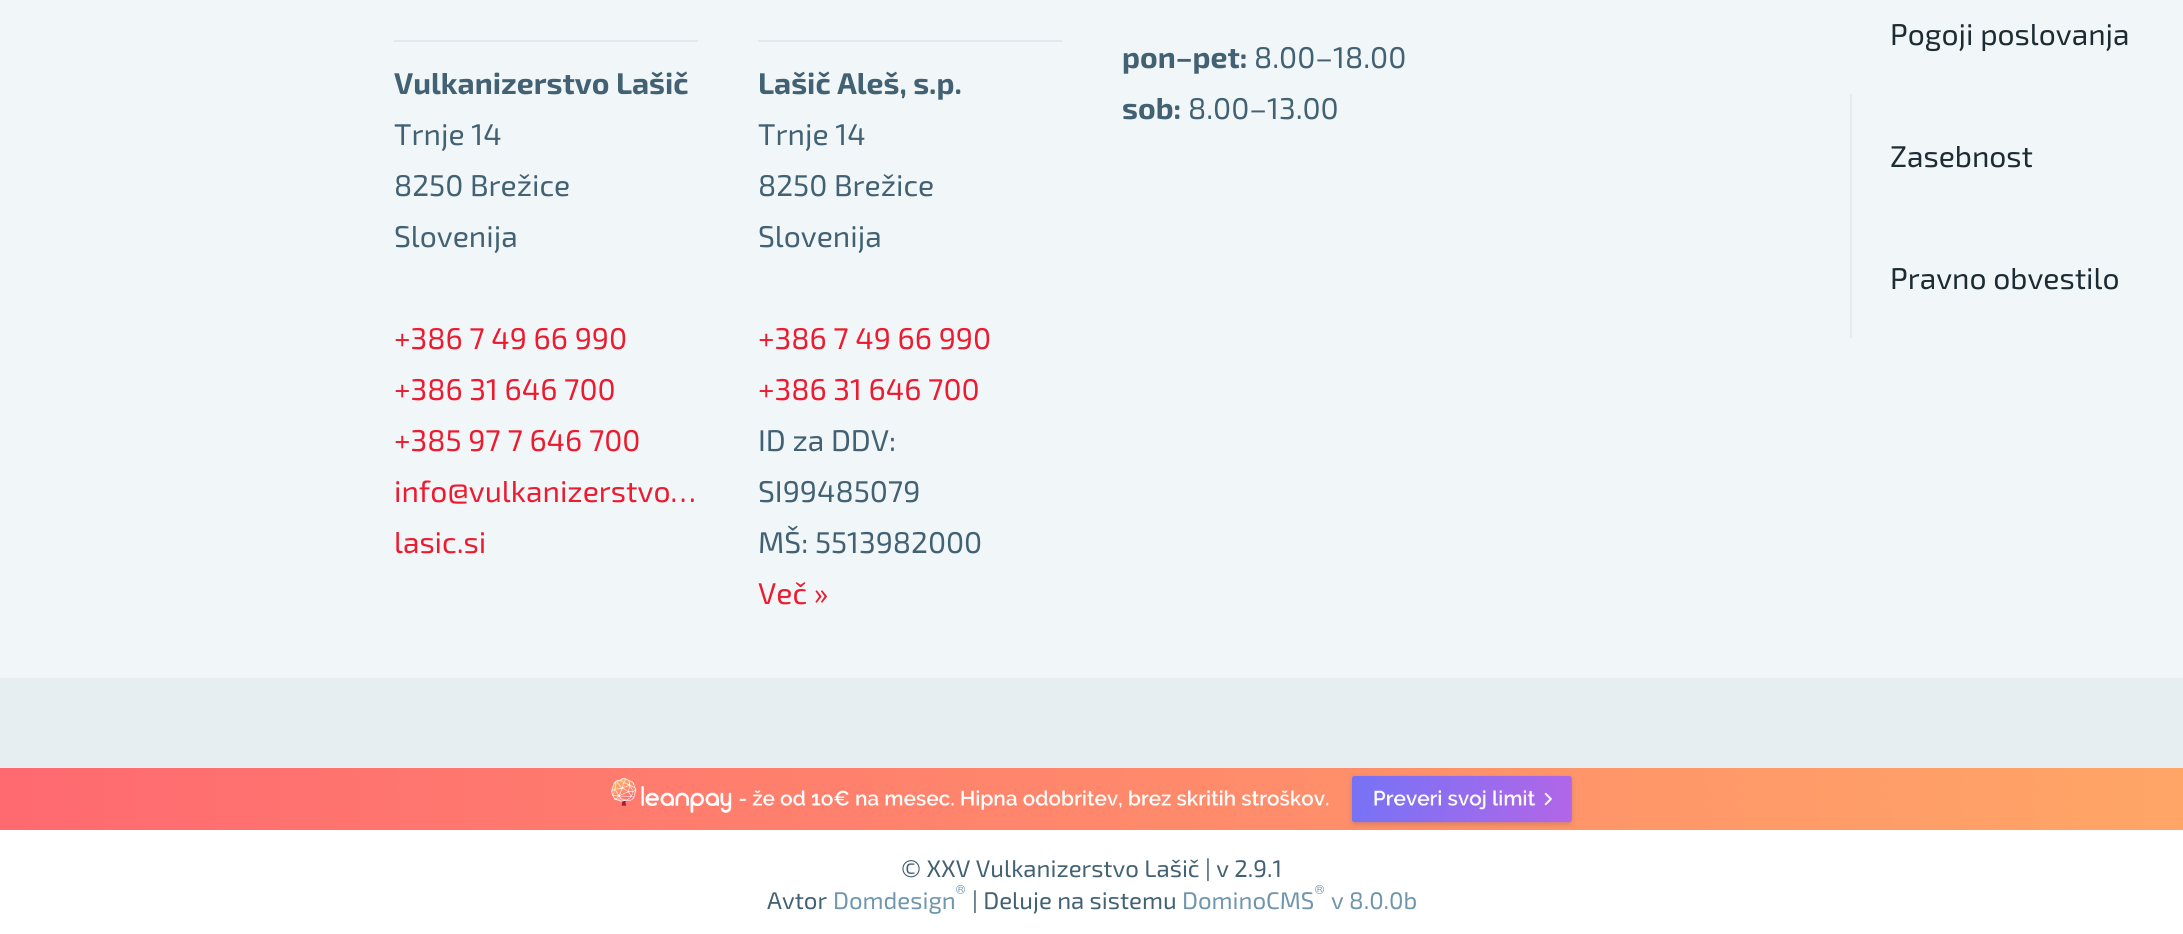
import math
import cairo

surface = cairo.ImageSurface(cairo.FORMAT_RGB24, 2183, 934)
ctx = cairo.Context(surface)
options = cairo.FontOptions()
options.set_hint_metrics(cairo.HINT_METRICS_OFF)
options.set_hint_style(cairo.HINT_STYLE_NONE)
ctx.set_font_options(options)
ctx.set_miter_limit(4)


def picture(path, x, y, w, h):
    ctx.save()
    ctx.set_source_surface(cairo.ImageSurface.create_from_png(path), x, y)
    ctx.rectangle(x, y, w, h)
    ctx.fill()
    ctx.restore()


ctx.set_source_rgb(0.945, 0.961, 0.969)
ctx.paint()
ctx.set_source_rgb(0.882, 0.914, 0.933)
ctx.rectangle(394, 40, 304, 2)
ctx.fill()
ctx.select_font_face("Exo 2", cairo.FONT_SLANT_NORMAL, cairo.FONT_WEIGHT_BOLD)
ctx.set_font_size(30)
ctx.set_source_rgb(0.259, 0.384, 0.455)
ctx.move_to(394, 94)
ctx.show_text("Vulkanizerstvo Lašič")
ctx.select_font_face("Exo 2")
ctx.move_to(394, 145)
ctx.show_text("Trnje 14")
ctx.move_to(394, 196)
ctx.show_text("8250 Brežice")
ctx.move_to(394, 247)
ctx.show_text("Slovenija")
ctx.set_source_rgb(0.929, 0.106, 0.184)
ctx.move_to(394, 349)
ctx.show_text("+386 7 49 66 990")
ctx.move_to(394, 400)
ctx.show_text("+386 31 646 700")
ctx.move_to(394, 451)
ctx.show_text("+385 97 7 646 700")
ctx.move_to(394, 502)
ctx.show_text("info@vulkanizerstvo…")
ctx.move_to(394, 553)
ctx.show_text("lasic.si")
ctx.set_source_rgb(0.882, 0.914, 0.933)
ctx.rectangle(758, 40, 304, 2)
ctx.fill()
ctx.select_font_face("Exo 2", cairo.FONT_SLANT_NORMAL, cairo.FONT_WEIGHT_BOLD)
ctx.set_source_rgb(0.259, 0.384, 0.455)
ctx.move_to(758, 94)
ctx.show_text("Lašič Aleš, s.p.")
ctx.select_font_face("Exo 2")
ctx.move_to(758, 145)
ctx.show_text("Trnje 14")
ctx.move_to(758, 196)
ctx.show_text("8250 Brežice")
ctx.move_to(758, 247)
ctx.show_text("Slovenija")
ctx.set_source_rgb(0.929, 0.106, 0.184)
ctx.move_to(758, 349)
ctx.show_text("+386 7 49 66 990")
ctx.move_to(758, 400)
ctx.show_text("+386 31 646 700")
ctx.set_source_rgb(0.259, 0.384, 0.455)
ctx.move_to(758, 451)
ctx.show_text("ID za DDV:")
ctx.move_to(758, 502)
ctx.show_text("SI99485079")
ctx.move_to(758, 553)
ctx.show_text("MŠ: 5513982000")
ctx.set_source_rgb(0.929, 0.106, 0.184)
ctx.move_to(758, 604)
ctx.show_text("Več »")
ctx.select_font_face("Exo 2", cairo.FONT_SLANT_NORMAL, cairo.FONT_WEIGHT_BOLD)
ctx.set_source_rgb(0.259, 0.384, 0.455)
ctx.move_to(1122, 68)
ctx.show_text("pon–pet:")
ctx.select_font_face("Exo 2")
ctx.move_to(1254, 68)
ctx.show_text("8.00–18.00")
ctx.select_font_face("Exo 2", cairo.FONT_SLANT_NORMAL, cairo.FONT_WEIGHT_BOLD)
ctx.move_to(1122, 119)
ctx.show_text("sob:")
ctx.select_font_face("Exo 2")
ctx.move_to(1188, 119)
ctx.show_text("8.00–13.00")
ctx.set_source_rgb(0.114, 0.169, 0.2)
ctx.move_to(1890, 45)
ctx.show_text("Pogoji poslovanja")
ctx.set_source_rgb(0.902, 0.922, 0.929)
ctx.rectangle(1850, 94, 2, 244)
ctx.fill()
ctx.set_source_rgb(0.114, 0.169, 0.2)
ctx.move_to(1890, 167)
ctx.show_text("Zasebnost")
ctx.move_to(1890, 289)
ctx.show_text("Pravno obvestilo")
ctx.set_source_rgb(0.906, 0.933, 0.945)
ctx.rectangle(0, 678, 2183, 90)
ctx.fill()
picture("img1.png", 0, 768, 2183, 62)
ctx.set_source_rgb(1, 1, 1)
ctx.rectangle(0, 830, 2183, 104)
ctx.fill()
ctx.set_font_size(24)
ctx.set_source_rgb(0.259, 0.384, 0.455)
ctx.move_to(901, 877)
ctx.show_text("© XXV Vulkanizerstvo Lašič | v 2.9.1")
ctx.set_font_size(20)
ctx.set_source_rgb(0.435, 0.588, 0.678)
ctx.move_to(955, 899)
ctx.show_text("®")
ctx.move_to(1314, 899)
ctx.show_text("®")
ctx.set_font_size(24)
ctx.set_source_rgb(0.259, 0.384, 0.455)
ctx.move_to(767, 909)
ctx.show_text("Avtor")
ctx.set_source_rgb(0.435, 0.588, 0.678)
ctx.move_to(833, 909)
ctx.show_text("Domdesign")
ctx.set_source_rgb(0.259, 0.384, 0.455)
ctx.move_to(972, 909)
ctx.show_text("| Deluje na sistemu")
ctx.set_source_rgb(0.435, 0.588, 0.678)
ctx.move_to(1182, 909)
ctx.show_text("DominoCMS")
ctx.move_to(1331, 909)
ctx.show_text("v 8.0.0b")
surface.write_to_png("page.png")
